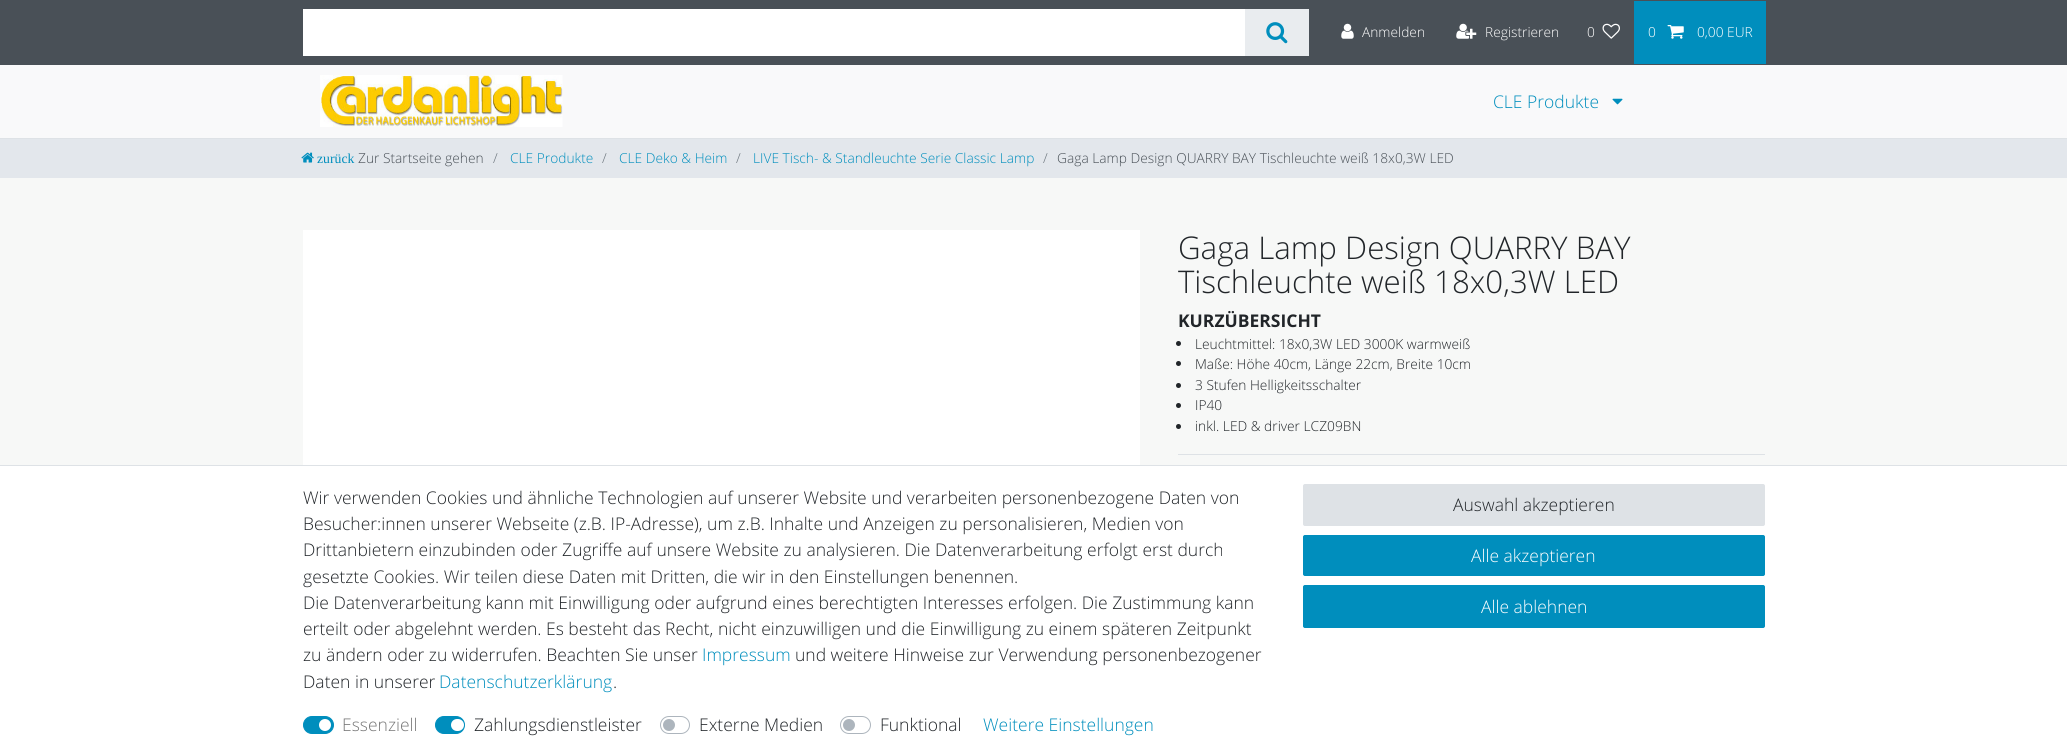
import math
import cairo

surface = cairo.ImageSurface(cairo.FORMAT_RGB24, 2067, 754)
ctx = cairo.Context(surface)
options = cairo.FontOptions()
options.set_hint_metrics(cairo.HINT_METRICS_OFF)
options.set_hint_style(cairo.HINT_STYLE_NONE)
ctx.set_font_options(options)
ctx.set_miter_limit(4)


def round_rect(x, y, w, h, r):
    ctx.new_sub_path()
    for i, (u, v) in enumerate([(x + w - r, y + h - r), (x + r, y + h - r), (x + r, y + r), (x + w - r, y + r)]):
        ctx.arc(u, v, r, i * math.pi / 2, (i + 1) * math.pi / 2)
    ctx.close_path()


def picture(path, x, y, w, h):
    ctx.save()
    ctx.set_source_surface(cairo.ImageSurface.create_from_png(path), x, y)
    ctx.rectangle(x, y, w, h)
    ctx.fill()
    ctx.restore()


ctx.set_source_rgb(0.973, 0.976, 0.98)
ctx.paint()
ctx.set_source_rgb(0.286, 0.314, 0.341)
ctx.rectangle(0, 0, 2067, 65)
ctx.fill()
ctx.set_source_rgb(1, 1, 1)
ctx.rectangle(303, 9, 942, 47)
ctx.fill()
ctx.set_source_rgb(0.914, 0.925, 0.937)
ctx.rectangle(1245, 9, 64, 47)
ctx.fill()
picture("img1.png", 1266, 22, 22, 22)
picture("img2.png", 1341, 23, 13, 16)
ctx.select_font_face("Open Sans Light")
ctx.set_font_size(13.75)
ctx.set_source_rgb(1, 1, 1)
ctx.move_to(1362, 37)
ctx.show_text("Anmelden")
picture("img3.png", 1456, 23, 21, 16)
ctx.move_to(1485, 37)
ctx.show_text("Registrieren")
ctx.move_to(1587, 37)
ctx.show_text("0")
picture("img4.png", 1602, 23, 18, 16)
ctx.set_source_rgb(0, 0.557, 0.741)
ctx.rectangle(1634, 1, 132, 63)
ctx.fill()
ctx.set_source_rgb(1, 1, 1)
ctx.move_to(1648, 37)
ctx.show_text("0")
picture("img5.png", 1667, 25, 17, 14)
ctx.move_to(1697, 37)
ctx.show_text("0,00 EUR")
ctx.set_source_rgb(0.871, 0.886, 0.902)
ctx.rectangle(0, 138, 2067, 1)
ctx.fill()
picture("img6.png", 320, 75, 243, 52)
ctx.set_font_size(17.5)
ctx.set_source_rgb(0, 0.557, 0.741)
ctx.move_to(1493, 108)
ctx.show_text("CLE Produkte")
picture("img7.png", 1612, 98, 11, 7)
ctx.set_source_rgb(0.89, 0.906, 0.922)
ctx.rectangle(0, 139, 2067, 39)
ctx.fill()
picture("img8.png", 301, 152, 13, 11)
ctx.select_font_face("Liberation Serif")
ctx.set_font_size(13.75)
ctx.set_source_rgb(0, 0.557, 0.741)
ctx.move_to(317, 163)
ctx.show_text("zurück")
ctx.select_font_face("Open Sans Light")
ctx.set_source_rgb(0.286, 0.314, 0.341)
ctx.move_to(358, 163)
ctx.show_text("Zur Startseite gehen")
ctx.set_source_rgb(0.424, 0.459, 0.49)
ctx.move_to(493, 163)
ctx.show_text("/")
ctx.set_source_rgb(0, 0.557, 0.741)
ctx.move_to(510, 163)
ctx.show_text("CLE Produkte")
ctx.set_source_rgb(0.424, 0.459, 0.49)
ctx.move_to(602, 163)
ctx.show_text("/")
ctx.set_source_rgb(0, 0.557, 0.741)
ctx.move_to(619, 163)
ctx.show_text("CLE Deko & Heim")
ctx.set_source_rgb(0.424, 0.459, 0.49)
ctx.move_to(736, 163)
ctx.show_text("/")
ctx.set_source_rgb(0, 0.557, 0.741)
ctx.move_to(753, 163)
ctx.show_text("LIVE Tisch- & Standleuchte Serie Classic Lamp")
ctx.set_source_rgb(0.424, 0.459, 0.49)
ctx.move_to(1043, 163)
ctx.show_text("/")
ctx.set_source_rgb(0.286, 0.314, 0.341)
ctx.move_to(1057, 163)
ctx.show_text("Gaga Lamp Design QUARRY BAY Tischleuchte weiß 18x0,3W LED")
ctx.set_source_rgb(0.965, 0.969, 0.965)
ctx.rectangle(0, 178, 2067, 287)
ctx.fill()
ctx.set_source_rgb(1, 1, 1)
ctx.rectangle(303, 230, 837, 235)
ctx.fill()
ctx.set_font_size(31.25)
ctx.set_source_rgb(0.129, 0.145, 0.161)
ctx.move_to(1178, 259)
ctx.show_text("Gaga Lamp Design QUARRY BAY")
ctx.move_to(1178, 293)
ctx.show_text("Tischleuchte weiß 18x0,3W LED")
ctx.select_font_face("Open Sans", cairo.FONT_SLANT_NORMAL, cairo.FONT_WEIGHT_BOLD)
ctx.set_font_size(17.5)
ctx.move_to(1178, 327)
ctx.show_text("KURZÜBERSICHT")
ctx.new_path()
ctx.arc(1178.5, 343.5, 2.5, 0, 2 * math.pi)
ctx.fill()
ctx.select_font_face("Open Sans Light")
ctx.set_font_size(13.75)
ctx.move_to(1195, 349)
ctx.show_text("Leuchtmittel: 18x0,3W LED 3000K warmweiß")
ctx.new_path()
ctx.arc(1178.5, 363.5, 2.5, 0, 2 * math.pi)
ctx.fill()
ctx.move_to(1195, 369)
ctx.show_text("Maße: Höhe 40cm, Länge 22cm, Breite 10cm")
ctx.new_path()
ctx.arc(1178.5, 385.5, 2.5, 0, 2 * math.pi)
ctx.fill()
ctx.move_to(1195, 390)
ctx.show_text("3 Stufen Helligkeitsschalter")
ctx.new_path()
ctx.arc(1178.5, 405.5, 2.5, 0, 2 * math.pi)
ctx.fill()
ctx.move_to(1195, 410)
ctx.show_text("IP40")
ctx.new_path()
ctx.arc(1178.5, 426.5, 2.5, 0, 2 * math.pi)
ctx.fill()
ctx.move_to(1195, 431)
ctx.show_text("inkl. LED & driver LCZ09BN")
ctx.set_source_rgb(0.871, 0.886, 0.902)
ctx.rectangle(1178, 454, 587, 1)
ctx.fill()
ctx.set_source_rgb(1, 1, 1)
ctx.rectangle(0, 466, 2067, 288)
ctx.fill()
ctx.set_source_rgb(0.871, 0.886, 0.902)
ctx.rectangle(0, 465, 2067, 1)
ctx.fill()
ctx.set_font_size(17.5)
ctx.set_source_rgb(0.129, 0.145, 0.161)
ctx.move_to(303, 504)
ctx.show_text("Wir verwenden Cookies und ähnliche Technologien auf unserer Website und verarbeiten personenbezogene Daten von")
ctx.move_to(303, 530)
ctx.show_text("Besucher:innen unserer Webseite (z.B. IP-Adresse), um z.B. Inhalte und Anzeigen zu personalisieren, Medien von")
ctx.move_to(303, 556)
ctx.show_text("Drittanbietern einzubinden oder Zugriffe auf unsere Website zu analysieren. Die Datenverarbeitung erfolgt erst durch")
ctx.move_to(303, 583)
ctx.show_text("gesetzte Cookies. Wir teilen diese Daten mit Dritten, die wir in den Einstellungen benennen.")
ctx.move_to(303, 609)
ctx.show_text("Die Datenverarbeitung kann mit Einwilligung oder aufgrund eines berechtigten Interesses erfolgen. Die Zustimmung kann")
ctx.move_to(303, 635)
ctx.show_text("erteilt oder abgelehnt werden. Es besteht das Recht, nicht einzuwilligen und die Einwilligung zu einem späteren Zeitpunkt")
ctx.move_to(303, 661)
ctx.show_text("zu ändern oder zu widerrufen. Beachten Sie unser")
ctx.set_source_rgb(0, 0.557, 0.741)
ctx.move_to(702, 661)
ctx.show_text("Impressum")
ctx.set_source_rgb(0.129, 0.145, 0.161)
ctx.move_to(795, 661)
ctx.show_text("und weitere Hinweise zur Verwendung personenbezogener")
ctx.move_to(303, 688)
ctx.show_text("Daten in unserer")
ctx.set_source_rgb(0, 0.557, 0.741)
ctx.move_to(439, 688)
ctx.show_text("Datenschutzerklärung")
ctx.set_source_rgb(0.129, 0.145, 0.161)
ctx.move_to(613, 688)
ctx.show_text(".")
ctx.set_source_rgb(0, 0.557, 0.741)
round_rect(303.5, 716.5, 30, 17, 8.5)
ctx.fill_preserve()
ctx.set_line_width(1)
ctx.stroke()
ctx.set_source_rgb(0.463, 0.463, 0.463)
ctx.move_to(342, 731)
ctx.show_text("Essenziell")
ctx.set_source_rgb(1, 1, 1)
ctx.new_path()
ctx.arc(325, 725, 6, 0, 2 * math.pi)
ctx.fill()
ctx.set_source_rgb(0, 0.557, 0.741)
round_rect(435.5, 716.5, 29, 17, 8.5)
ctx.fill_preserve()
ctx.stroke()
ctx.set_source_rgb(0.129, 0.145, 0.161)
ctx.move_to(474, 731)
ctx.show_text("Zahlungsdienstleister")
ctx.set_source_rgb(1, 1, 1)
round_rect(451, 719, 13, 12, 6)
ctx.fill()
round_rect(660.5, 716.5, 29, 17, 8.5)
ctx.set_source_rgb(0.678, 0.71, 0.741)
ctx.stroke()
ctx.set_source_rgb(0.129, 0.145, 0.161)
ctx.move_to(699, 731)
ctx.show_text("Externe Medien")
ctx.set_source_rgb(0.678, 0.71, 0.741)
ctx.new_path()
ctx.arc(669, 725, 6, 0, 2 * math.pi)
ctx.fill()
round_rect(840.5, 716.5, 30, 17, 8.5)
ctx.stroke()
ctx.set_source_rgb(0.129, 0.145, 0.161)
ctx.move_to(880, 731)
ctx.show_text("Funktional")
ctx.set_source_rgb(0.678, 0.71, 0.741)
ctx.new_path()
ctx.arc(849, 725, 6, 0, 2 * math.pi)
ctx.fill()
ctx.set_source_rgb(0, 0.557, 0.741)
ctx.move_to(983, 731)
ctx.show_text("Weitere Einstellungen")
ctx.set_source_rgb(0.871, 0.886, 0.902)
round_rect(1303.5, 484.5, 461, 41, 1.5)
ctx.fill_preserve()
ctx.stroke()
ctx.set_source_rgb(0.129, 0.145, 0.161)
ctx.move_to(1453, 511)
ctx.show_text("Auswahl akzeptieren")
ctx.set_source_rgb(0, 0.557, 0.741)
round_rect(1303.5, 535.5, 461, 40, 1.5)
ctx.fill_preserve()
ctx.stroke()
ctx.set_source_rgb(1, 1, 1)
ctx.move_to(1471, 562)
ctx.show_text("Alle akzeptieren")
ctx.set_source_rgb(0, 0.557, 0.741)
round_rect(1303.5, 585.5, 461, 42, 1.5)
ctx.fill_preserve()
ctx.stroke()
ctx.set_source_rgb(1, 1, 1)
ctx.move_to(1481, 613)
ctx.show_text("Alle ablehnen")
surface.write_to_png("page.png")
